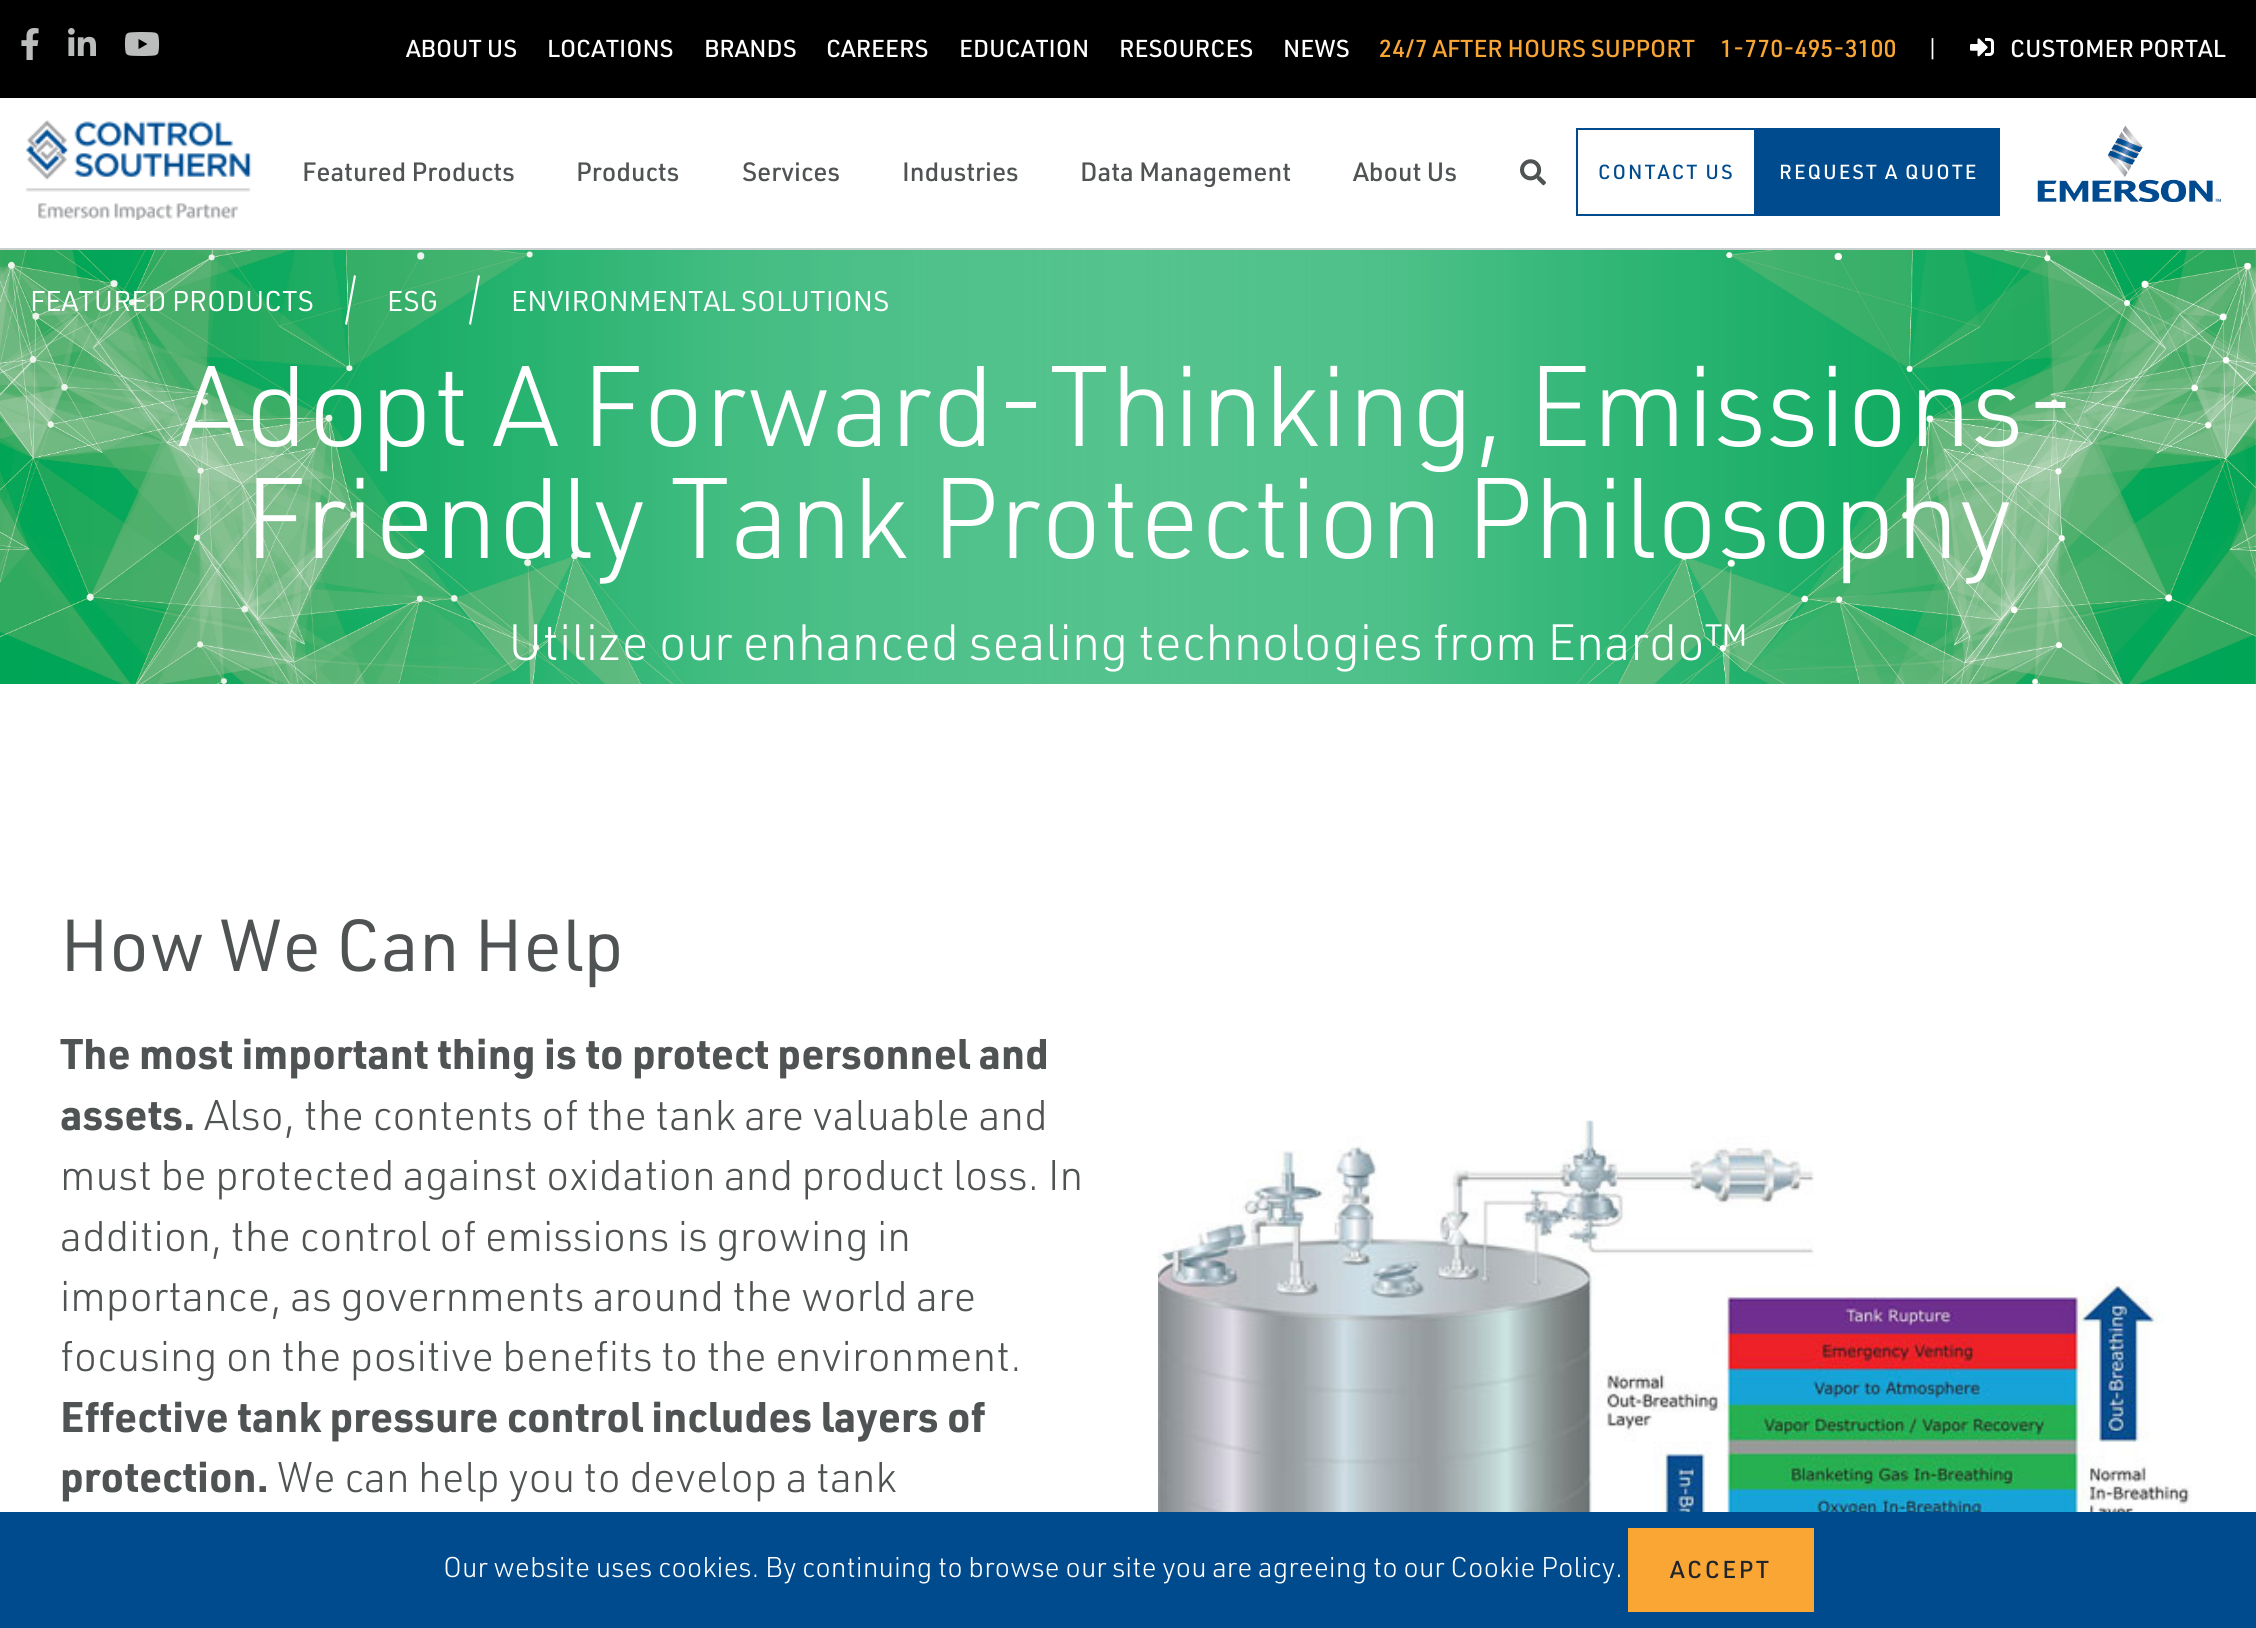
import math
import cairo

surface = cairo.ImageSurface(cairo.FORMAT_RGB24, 2256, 1628)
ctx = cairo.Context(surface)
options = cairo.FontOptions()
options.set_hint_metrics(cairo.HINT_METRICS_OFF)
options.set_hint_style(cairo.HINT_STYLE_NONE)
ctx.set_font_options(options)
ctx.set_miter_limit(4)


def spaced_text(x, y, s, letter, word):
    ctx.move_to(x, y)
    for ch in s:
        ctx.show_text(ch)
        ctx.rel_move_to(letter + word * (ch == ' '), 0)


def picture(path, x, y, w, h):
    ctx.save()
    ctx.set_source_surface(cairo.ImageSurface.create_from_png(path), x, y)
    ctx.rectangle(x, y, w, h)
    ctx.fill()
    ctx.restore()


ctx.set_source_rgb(1, 1, 1)
ctx.paint()
ctx.set_source_rgb(0.792, 0.812, 0.816)
ctx.rectangle(0, 248, 2256, 2)
ctx.fill()
ctx.set_source_rgb(0, 0, 0)
ctx.rectangle(0, 0, 2256, 98)
ctx.fill()
picture("img1.png", 21, 28, 18, 32)
picture("img2.png", 68, 28, 28, 28)
picture("img3.png", 124, 32, 36, 24)
ctx.select_font_face("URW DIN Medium")
ctx.set_font_size(24)
ctx.set_source_rgb(1, 1, 1)
ctx.move_to(406, 57)
ctx.show_text("ABOUT US")
ctx.move_to(547, 57)
ctx.show_text("LOCATIONS")
ctx.move_to(704, 57)
ctx.show_text("BRANDS")
ctx.move_to(826, 57)
ctx.show_text("CAREERS")
ctx.move_to(959, 57)
ctx.show_text("EDUCATION")
ctx.move_to(1119, 57)
ctx.show_text("RESOURCES")
ctx.move_to(1283, 57)
ctx.show_text("NEWS")
ctx.set_source_rgb(0.98, 0.651, 0.204)
ctx.move_to(1379, 57)
ctx.show_text("24/7 AFTER HOURS SUPPORT")
ctx.move_to(1720, 57)
ctx.show_text("1-770-495-3100")
ctx.select_font_face("URW DIN")
ctx.set_source_rgb(1, 1, 1)
ctx.move_to(1926, 57)
ctx.show_text("|")
picture("img4.png", 1970, 38, 24, 19)
ctx.select_font_face("URW DIN Medium")
ctx.move_to(2010, 57)
ctx.show_text("CUSTOMER PORTAL")
picture("img5.png", 25, 120, 227, 100)
ctx.set_font_size(26)
ctx.set_source_rgb(0.314, 0.325, 0.329)
ctx.move_to(302, 181)
ctx.show_text("Featured Products")
ctx.move_to(576, 181)
ctx.show_text("Products")
ctx.move_to(742, 181)
ctx.show_text("Services")
ctx.move_to(902, 181)
ctx.show_text("Industries")
ctx.move_to(1080, 181)
ctx.show_text("Data Management")
ctx.move_to(1353, 181)
ctx.show_text("About Us")
picture("img6.png", 1520, 159, 26, 27)
ctx.rectangle(1577, 129, 178, 86)
ctx.set_source_rgb(0, 0.294, 0.553)
ctx.stroke()
ctx.set_font_size(20)
spaced_text(1598, 179, "CONTACT US", 2, 0)
ctx.rectangle(1756, 128, 244, 88)
ctx.fill()
ctx.set_source_rgb(1, 1, 1)
spaced_text(1779, 179, "REQUEST A QUOTE", 2, 0)
picture("img7.png", 2037, 125, 184, 77)
picture("img8.png", 0, 250, 2256, 434)
ctx.select_font_face("URW DIN")
ctx.set_font_size(28)
ctx.move_to(30, 311)
ctx.show_text("FEATURED PRODUCTS")
ctx.new_path()
ctx.move_to(354, 275)
ctx.line_to(356, 276)
ctx.line_to(347, 325)
ctx.line_to(345, 324)
ctx.close_path()
ctx.fill()
ctx.move_to(387, 311)
ctx.show_text("ESG")
ctx.new_path()
ctx.move_to(478, 275)
ctx.line_to(480, 276)
ctx.line_to(471, 325)
ctx.line_to(469, 324)
ctx.close_path()
ctx.fill()
ctx.move_to(511, 311)
ctx.show_text("ENVIRONMENTAL SOLUTIONS")
ctx.select_font_face("URW DIN Light")
ctx.set_font_size(112)
ctx.move_to(178, 446)
ctx.show_text("Adopt A Forward-Thinking, Emissions-")
ctx.move_to(244, 558)
ctx.show_text("Friendly Tank Protection Philosophy")
ctx.set_font_size(50)
ctx.move_to(508, 660)
ctx.show_text("Utilize our enhanced sealing technologies from Enardo™")
ctx.select_font_face("URW DIN")
ctx.set_font_size(72)
ctx.set_source_rgb(0.314, 0.325, 0.329)
ctx.move_to(60, 971)
ctx.show_text("How We Can Help")
ctx.select_font_face("URW DIN", cairo.FONT_SLANT_NORMAL, cairo.FONT_WEIGHT_BOLD)
ctx.set_font_size(42)
ctx.move_to(60, 1069)
ctx.show_text("The most important thing is to protect personnel and")
ctx.move_to(60, 1130)
ctx.show_text("assets.")
ctx.select_font_face("URW DIN Light")
ctx.move_to(204, 1130)
ctx.show_text("Also, the contents of the tank are valuable and")
ctx.move_to(60, 1190)
ctx.show_text("must be protected against oxidation and product loss. In")
ctx.move_to(60, 1251)
ctx.show_text("addition, the control of emissions is growing in")
ctx.move_to(60, 1311)
ctx.show_text("importance, as governments around the world are")
ctx.move_to(60, 1371)
ctx.show_text("focusing on the positive benefits to the environment.")
ctx.select_font_face("URW DIN", cairo.FONT_SLANT_NORMAL, cairo.FONT_WEIGHT_BOLD)
ctx.move_to(60, 1432)
ctx.show_text("Effective tank pressure control includes layers of")
ctx.move_to(60, 1492)
ctx.show_text("protection.")
ctx.select_font_face("URW DIN Light")
ctx.move_to(277, 1492)
ctx.show_text("We can help you to develop a tank")
picture("img9.png", 1158, 1120, 1034, 392)
ctx.set_source_rgb(0, 0.294, 0.553)
ctx.rectangle(0, 1512, 2256, 116)
ctx.fill()
ctx.set_font_size(28)
ctx.set_source_rgb(1, 1, 1)
ctx.move_to(443, 1577)
ctx.show_text("Our website uses cookies. By continuing to browse our site you are agreeing to our Cookie Policy.")
ctx.set_source_rgb(0.98, 0.651, 0.204)
ctx.rectangle(1628, 1528, 186, 84)
ctx.fill()
ctx.select_font_face("URW DIN Medium")
ctx.set_font_size(24)
ctx.set_source_rgb(0.129, 0.145, 0.161)
spaced_text(1670, 1578, "ACCEPT", 2.5, 0)
surface.write_to_png("page.png")
